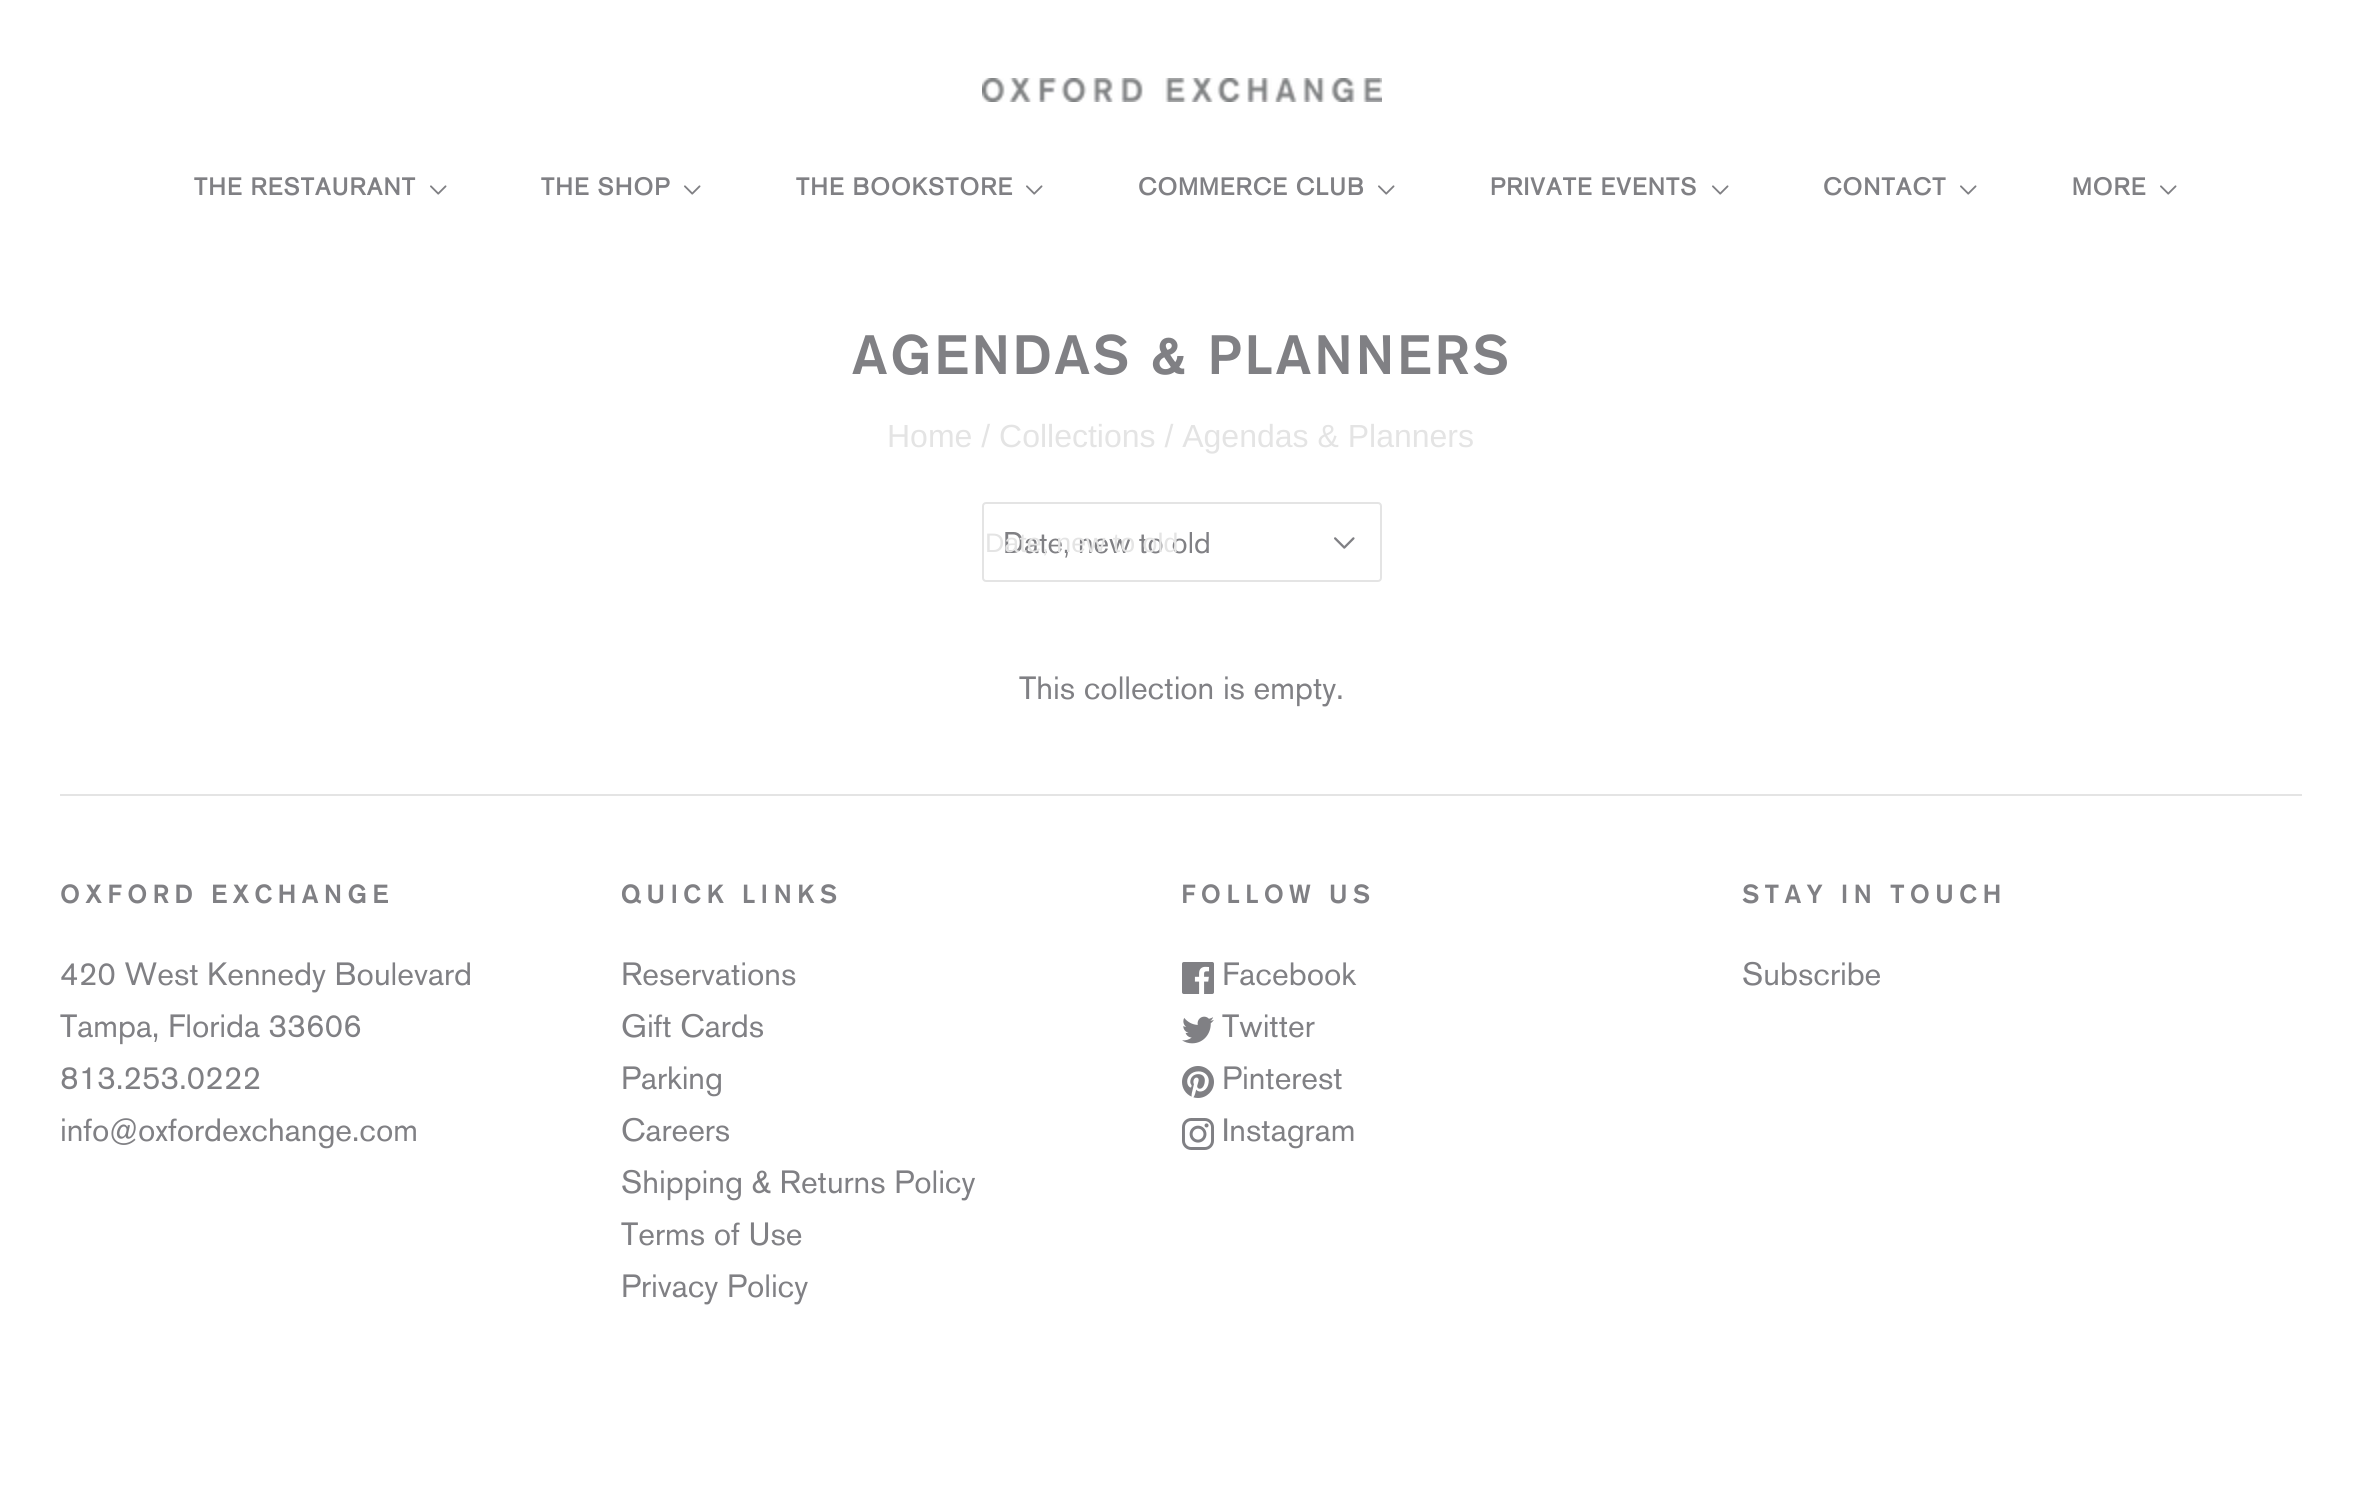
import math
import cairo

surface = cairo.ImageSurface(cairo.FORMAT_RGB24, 2361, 1494)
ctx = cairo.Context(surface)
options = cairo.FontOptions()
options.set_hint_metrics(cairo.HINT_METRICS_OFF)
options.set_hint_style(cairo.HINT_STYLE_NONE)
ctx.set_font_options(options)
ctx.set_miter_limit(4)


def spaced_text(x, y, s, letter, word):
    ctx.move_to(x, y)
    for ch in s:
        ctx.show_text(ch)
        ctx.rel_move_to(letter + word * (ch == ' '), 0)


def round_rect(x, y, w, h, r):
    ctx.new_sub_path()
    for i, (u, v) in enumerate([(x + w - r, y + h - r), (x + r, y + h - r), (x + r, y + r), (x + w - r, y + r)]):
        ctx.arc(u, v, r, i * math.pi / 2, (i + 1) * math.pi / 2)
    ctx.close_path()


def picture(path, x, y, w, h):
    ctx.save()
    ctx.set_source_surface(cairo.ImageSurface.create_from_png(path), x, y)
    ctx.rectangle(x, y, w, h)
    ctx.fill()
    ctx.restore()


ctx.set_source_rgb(1, 1, 1)
ctx.paint()
picture("img1.png", 982, 78, 400, 24)
ctx.select_font_face("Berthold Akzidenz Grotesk", cairo.FONT_SLANT_NORMAL, cairo.FONT_WEIGHT_BOLD)
ctx.set_font_size(24)
ctx.set_source_rgb(0.502, 0.502, 0.518)
spaced_text(194, 195, "THE RESTAURANT", 1.25, 0)
picture("img2.png", 430, 185, 17, 10)
spaced_text(541, 195, "THE SHOP", 1.25, 0)
picture("img2.png", 684, 185, 17, 10)
spaced_text(796, 195, "THE BOOKSTORE", 1.25, 0)
picture("img2.png", 1026, 185, 17, 10)
spaced_text(1138, 195, "COMMERCE CLUB", 1.25, 0)
picture("img2.png", 1378, 185, 17, 10)
spaced_text(1490, 195, "PRIVATE EVENTS", 1.25, 0)
picture("img2.png", 1712, 185, 17, 10)
spaced_text(1823, 195, "CONTACT", 1.25, 0)
picture("img2.png", 1960, 185, 17, 10)
spaced_text(2072, 195, "MORE", 1.25, 0)
picture("img2.png", 2160, 185, 17, 10)
ctx.select_font_face("Berthold Akzidenz Grotesk Medium")
ctx.set_font_size(54.9)
spaced_text(852, 374, "AGENDAS & PLANNERS", 2.75, 0)
ctx.select_font_face("Liberation Sans")
ctx.set_font_size(32)
ctx.set_source_rgb(0.894, 0.894, 0.894)
ctx.move_to(887, 447)
ctx.show_text("Home / Collections / Agendas & Planners")
round_rect(983, 503, 398, 78, 3)
ctx.stroke()
ctx.select_font_face("Berthold Akzidenz Grotesk")
ctx.set_font_size(29.75)
ctx.set_source_rgb(0.502, 0.502, 0.518)
ctx.move_to(1003, 553)
ctx.show_text("Date, new to old")
ctx.select_font_face("Liberation Sans")
ctx.set_font_size(26.75)
ctx.set_source_rgb(0.894, 0.894, 0.894)
ctx.move_to(985, 552)
ctx.show_text("Date, new to old")
picture("img3.png", 1334, 537, 21, 12)
ctx.select_font_face("Berthold Akzidenz Grotesk")
ctx.set_font_size(32)
ctx.set_source_rgb(0.502, 0.502, 0.518)
ctx.move_to(1019, 699)
ctx.show_text("This collection is empty.")
ctx.set_source_rgb(0.894, 0.894, 0.894)
ctx.rectangle(60, 794, 2242, 2)
ctx.fill()
ctx.select_font_face("Berthold Akzidenz Grotesk Medium")
ctx.set_font_size(26)
ctx.set_source_rgb(0.502, 0.502, 0.518)
spaced_text(60, 903, "OXFORD EXCHANGE", 5.25, 0)
ctx.select_font_face("Berthold Akzidenz Grotesk")
ctx.set_font_size(32)
ctx.move_to(60, 985)
ctx.show_text("420 West Kennedy Boulevard")
ctx.move_to(60, 1037)
ctx.show_text("Tampa, Florida 33606")
ctx.move_to(60, 1089)
ctx.show_text("813.253.0222")
ctx.move_to(60, 1141)
ctx.show_text("info@oxfordexchange.com")
ctx.select_font_face("Berthold Akzidenz Grotesk Medium")
ctx.set_font_size(26)
spaced_text(621, 903, "QUICK LINKS", 5.25, 0)
ctx.select_font_face("Berthold Akzidenz Grotesk")
ctx.set_font_size(32)
ctx.move_to(621, 985)
ctx.show_text("Reservations")
ctx.move_to(621, 1037)
ctx.show_text("Gift Cards")
ctx.move_to(621, 1089)
ctx.show_text("Parking")
ctx.move_to(621, 1141)
ctx.show_text("Careers")
ctx.move_to(621, 1193)
ctx.show_text("Shipping & Returns Policy")
ctx.move_to(621, 1245)
ctx.show_text("Terms of Use")
ctx.move_to(621, 1297)
ctx.show_text("Privacy Policy")
ctx.select_font_face("Berthold Akzidenz Grotesk Medium")
ctx.set_font_size(26)
spaced_text(1181, 903, "FOLLOW US", 5.25, 0)
picture("img4.png", 1182, 962, 32, 32)
ctx.select_font_face("Berthold Akzidenz Grotesk")
ctx.set_font_size(32)
ctx.move_to(1222, 985)
ctx.show_text("Facebook")
picture("img5.png", 1182, 1016, 32, 28)
ctx.move_to(1222, 1037)
ctx.show_text("Twitter")
picture("img6.png", 1182, 1066, 32, 32)
ctx.move_to(1222, 1089)
ctx.show_text("Pinterest")
picture("img7.png", 1182, 1118, 32, 32)
ctx.move_to(1222, 1141)
ctx.show_text("Instagram")
ctx.select_font_face("Berthold Akzidenz Grotesk Medium")
ctx.set_font_size(26)
spaced_text(1742, 903, "STAY IN TOUCH", 5.25, 0)
ctx.select_font_face("Berthold Akzidenz Grotesk")
ctx.set_font_size(32)
ctx.move_to(1742, 985)
ctx.show_text("Subscribe")
surface.write_to_png("page.png")
